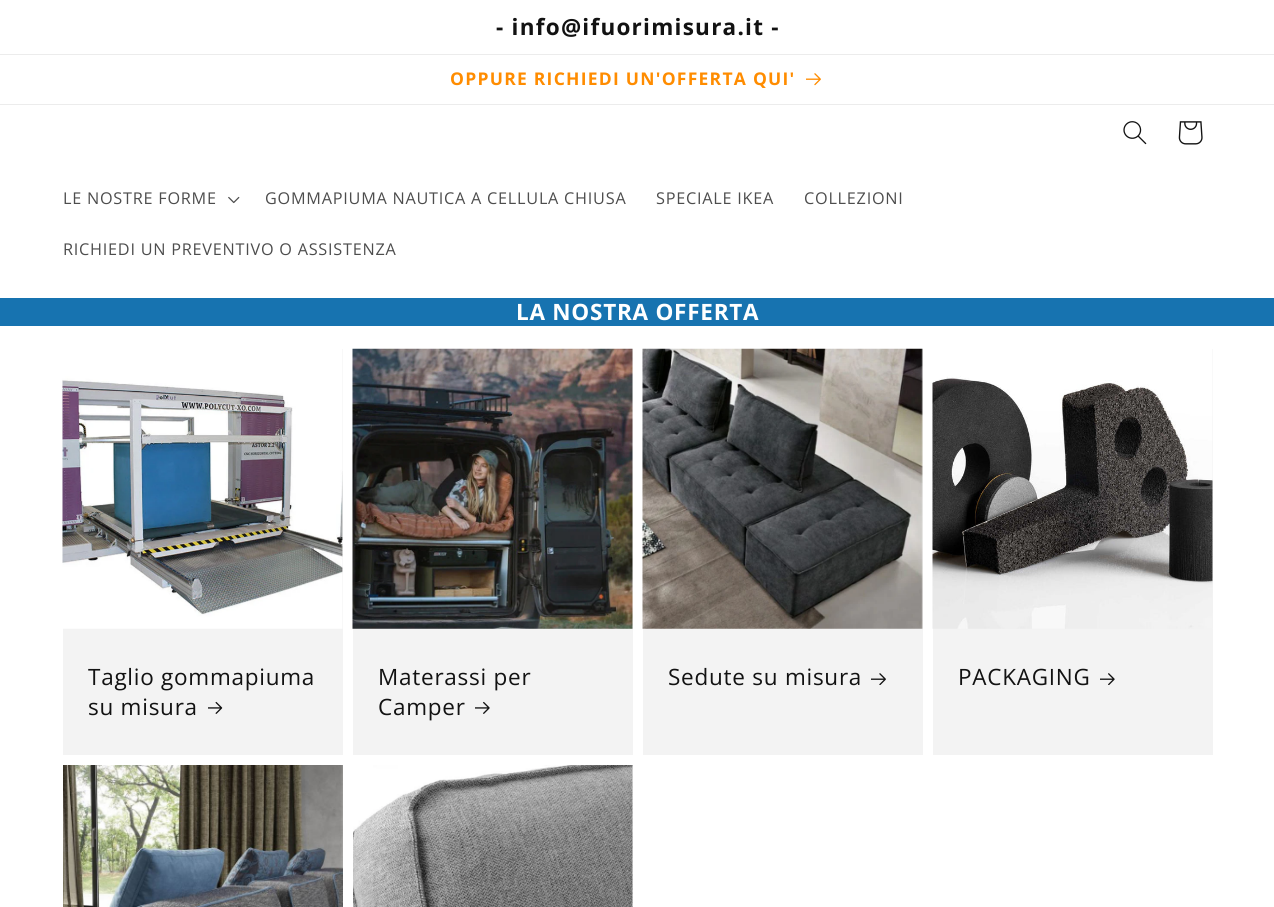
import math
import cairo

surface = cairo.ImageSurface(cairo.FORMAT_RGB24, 1274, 907)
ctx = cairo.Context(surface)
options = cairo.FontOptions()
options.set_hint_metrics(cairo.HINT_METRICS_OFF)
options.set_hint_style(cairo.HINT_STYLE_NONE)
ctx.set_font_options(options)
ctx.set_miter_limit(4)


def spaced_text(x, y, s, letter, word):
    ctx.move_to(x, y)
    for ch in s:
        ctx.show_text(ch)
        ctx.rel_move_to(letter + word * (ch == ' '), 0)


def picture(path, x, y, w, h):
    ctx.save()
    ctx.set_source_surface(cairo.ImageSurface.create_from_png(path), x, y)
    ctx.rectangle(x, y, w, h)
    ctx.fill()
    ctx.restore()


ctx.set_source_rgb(1, 1, 1)
ctx.paint()
ctx.set_source_rgb(0.925, 0.925, 0.925)
ctx.rectangle(0, 54, 1274, 1)
ctx.fill()
ctx.select_font_face("Open Sans", cairo.FONT_SLANT_NORMAL, cairo.FONT_WEIGHT_BOLD)
ctx.set_font_size(22.5)
ctx.set_source_rgb(0.071, 0.071, 0.071)
spaced_text(496, 35, "- info@ifuorimisura.it -", 1.25, 0)
ctx.set_source_rgb(0.925, 0.925, 0.925)
ctx.rectangle(0, 104, 1274, 1)
ctx.fill()
ctx.set_font_size(17.5)
ctx.set_source_rgb(1, 0.549, 0)
spaced_text(450, 85, "OPPURE RICHIEDI UN'OFFERTA QUI'", 1.25, 0)
picture("img1.png", 806, 73, 15, 13)
picture("img2.png", 1123, 121, 24, 24)
picture("img3.png", 1178, 121, 25, 24)
ctx.select_font_face("Open Sans")
ctx.set_font_size(16.25)
ctx.set_source_rgb(0.302, 0.302, 0.302)
spaced_text(63, 204, "LE NOSTRE FORME", 0.75, 0)
picture("img4.png", 228, 196, 12, 8)
spaced_text(265, 204, "GOMMAPIUMA NAUTICA A CELLULA CHIUSA", 0.75, 0)
spaced_text(656, 204, "SPECIALE IKEA", 0.75, 0)
spaced_text(804, 204, "COLLEZIONI", 0.75, 0)
spaced_text(63, 255, "RICHIEDI UN PREVENTIVO O ASSISTENZA", 0.75, 0)
ctx.set_source_rgb(0.09, 0.451, 0.69)
ctx.rectangle(0, 298, 1274, 28)
ctx.fill()
ctx.select_font_face("Open Sans", cairo.FONT_SLANT_NORMAL, cairo.FONT_WEIGHT_BOLD)
ctx.set_font_size(22.5)
ctx.set_source_rgb(1, 1, 1)
spaced_text(516, 320, "LA NOSTRA OFFERTA", 0.75, 0)
ctx.set_source_rgb(0.953, 0.953, 0.953)
ctx.rectangle(63, 349, 280, 406)
ctx.fill()
picture("img5.png", 62, 349, 281, 280)
ctx.select_font_face("Open Sans")
ctx.set_source_rgb(0.071, 0.071, 0.071)
spaced_text(88, 685, "Taglio gommapiuma", 0.75, 0)
spaced_text(88, 715, "su misura", 0.75, 0)
picture("img6.png", 208, 701, 15, 13)
ctx.set_source_rgb(0.953, 0.953, 0.953)
ctx.rectangle(353, 349, 280, 406)
ctx.fill()
picture("img7.png", 352, 348, 281, 281)
ctx.set_source_rgb(0.071, 0.071, 0.071)
spaced_text(378, 685, "Materassi per", 0.75, 0)
spaced_text(378, 715, "Camper", 0.75, 0)
picture("img8.png", 475, 701, 15, 13)
ctx.set_source_rgb(0.953, 0.953, 0.953)
ctx.rectangle(643, 349, 280, 406)
ctx.fill()
picture("img9.png", 642, 348, 281, 281)
ctx.set_source_rgb(0.071, 0.071, 0.071)
spaced_text(668, 685, "Sedute su misura", 0.75, 0)
picture("img10.png", 871, 673, 15, 12)
ctx.set_source_rgb(0.953, 0.953, 0.953)
ctx.rectangle(933, 349, 280, 406)
ctx.fill()
picture("img11.png", 932, 349, 281, 280)
ctx.set_source_rgb(0.071, 0.071, 0.071)
spaced_text(958, 685, "PACKAGING", 0.75, 0)
picture("img12.png", 1100, 673, 15, 12)
picture("img13.png", 63, 765, 280, 142)
ctx.set_source_rgb(0.953, 0.953, 0.953)
ctx.rectangle(632, 765, 1, 142)
ctx.fill()
picture("img14.png", 353, 765, 280, 142)
surface.write_to_png("page.png")
